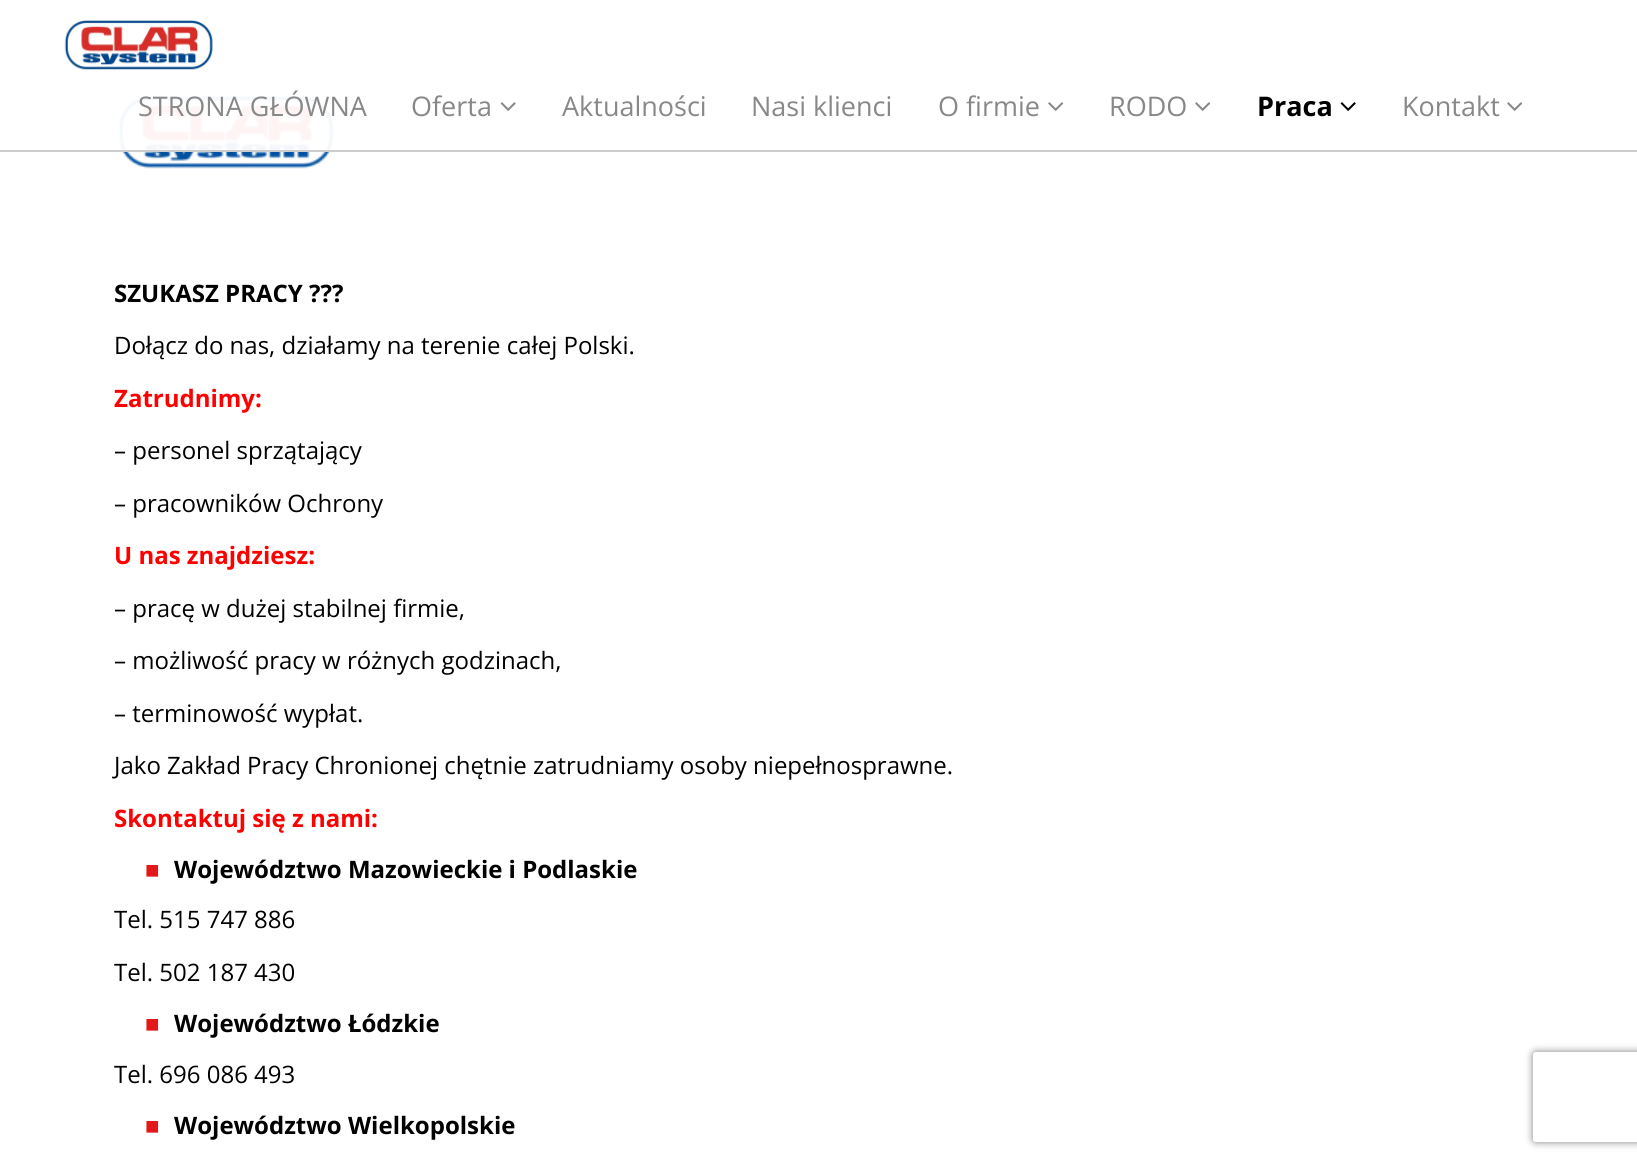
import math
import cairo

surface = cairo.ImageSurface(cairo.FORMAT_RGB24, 1637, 1162)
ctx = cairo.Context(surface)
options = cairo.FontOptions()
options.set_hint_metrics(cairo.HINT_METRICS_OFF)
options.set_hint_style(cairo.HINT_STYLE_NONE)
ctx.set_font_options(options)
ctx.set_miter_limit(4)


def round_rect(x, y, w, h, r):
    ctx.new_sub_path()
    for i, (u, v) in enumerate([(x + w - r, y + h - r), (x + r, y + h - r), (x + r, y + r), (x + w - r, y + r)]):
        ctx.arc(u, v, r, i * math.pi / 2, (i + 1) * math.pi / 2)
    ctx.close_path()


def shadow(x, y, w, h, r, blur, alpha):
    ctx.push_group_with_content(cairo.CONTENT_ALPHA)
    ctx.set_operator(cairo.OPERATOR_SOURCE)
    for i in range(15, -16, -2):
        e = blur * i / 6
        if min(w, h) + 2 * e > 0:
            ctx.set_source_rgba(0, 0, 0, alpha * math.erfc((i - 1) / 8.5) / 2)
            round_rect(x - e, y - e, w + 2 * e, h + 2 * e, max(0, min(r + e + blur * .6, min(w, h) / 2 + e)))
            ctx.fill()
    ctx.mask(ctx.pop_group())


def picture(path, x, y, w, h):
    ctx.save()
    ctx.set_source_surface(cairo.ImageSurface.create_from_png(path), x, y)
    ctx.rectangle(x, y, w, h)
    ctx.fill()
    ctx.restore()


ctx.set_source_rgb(1, 1, 1)
ctx.paint()
picture("img5.png", 118, 95, 217, 74)
ctx.set_source_rgba(1, 1, 1, 0.95)
ctx.rectangle(118, 95, 217, 55)
ctx.fill()
ctx.set_source_rgb(0.8, 0.8, 0.8)
ctx.rectangle(0, 150, 1637, 2)
ctx.fill()
picture("img1.png", 64, 20, 149, 50)
ctx.select_font_face("Open Sans")
ctx.set_font_size(27)
ctx.set_source_rgb(0.533, 0.533, 0.533)
ctx.move_to(138, 116)
ctx.show_text("STRONA GŁÓWNA")
ctx.move_to(411, 116)
ctx.show_text("Oferta")
picture("img2.png", 500, 102, 16, 9)
ctx.move_to(562, 116)
ctx.show_text("Aktualności")
ctx.move_to(751, 116)
ctx.show_text("Nasi klienci")
ctx.move_to(938, 116)
ctx.show_text("O firmie")
picture("img3.png", 1048, 102, 16, 9)
ctx.move_to(1109, 116)
ctx.show_text("RODO")
picture("img3.png", 1195, 102, 16, 9)
ctx.select_font_face("Open Sans", cairo.FONT_SLANT_NORMAL, cairo.FONT_WEIGHT_BOLD)
ctx.set_source_rgb(0, 0, 0)
ctx.move_to(1257, 116)
ctx.show_text("Praca")
picture("img4.png", 1340, 102, 16, 9)
ctx.select_font_face("Open Sans")
ctx.set_source_rgb(0.533, 0.533, 0.533)
ctx.move_to(1402, 116)
ctx.show_text("Kontakt")
picture("img3.png", 1507, 102, 16, 9)
ctx.select_font_face("Open Sans", cairo.FONT_SLANT_NORMAL, cairo.FONT_WEIGHT_BOLD)
ctx.set_font_size(24)
ctx.set_source_rgb(0, 0, 0)
ctx.move_to(114, 302)
ctx.show_text("SZUKASZ PRACY ???")
ctx.select_font_face("Open Sans")
ctx.move_to(114, 354)
ctx.show_text("Dołącz do nas, działamy na terenie całej Polski.")
ctx.select_font_face("Open Sans", cairo.FONT_SLANT_NORMAL, cairo.FONT_WEIGHT_BOLD)
ctx.set_source_rgb(1, 0, 0)
ctx.move_to(114, 407)
ctx.show_text("Zatrudnimy:")
ctx.select_font_face("Open Sans")
ctx.set_source_rgb(0, 0, 0)
ctx.move_to(114, 459)
ctx.show_text("– personel sprzątający")
ctx.move_to(114, 512)
ctx.show_text("– pracowników Ochrony")
ctx.select_font_face("Open Sans", cairo.FONT_SLANT_NORMAL, cairo.FONT_WEIGHT_BOLD)
ctx.set_source_rgb(1, 0, 0)
ctx.move_to(114, 564)
ctx.show_text("U nas znajdziesz:")
ctx.select_font_face("Open Sans")
ctx.set_source_rgb(0, 0, 0)
ctx.move_to(114, 617)
ctx.show_text("– pracę w dużej stabilnej firmie,")
ctx.move_to(114, 669)
ctx.show_text("– możliwość pracy w różnych godzinach,")
ctx.move_to(114, 722)
ctx.show_text("– terminowość wypłat.")
ctx.move_to(114, 774)
ctx.show_text("Jako Zakład Pracy Chronionej chętnie zatrudniamy osoby niepełnosprawne.")
ctx.select_font_face("Open Sans", cairo.FONT_SLANT_NORMAL, cairo.FONT_WEIGHT_BOLD)
ctx.set_source_rgb(1, 0, 0)
ctx.move_to(114, 827)
ctx.show_text("Skontaktuj się z nami:")
ctx.select_font_face("Liberation Sans")
ctx.set_source_rgb(0.89, 0.094, 0.094)
ctx.move_to(145, 878)
ctx.show_text("■")
ctx.select_font_face("Open Sans", cairo.FONT_SLANT_NORMAL, cairo.FONT_WEIGHT_BOLD)
ctx.set_source_rgb(0, 0, 0)
ctx.move_to(174, 878)
ctx.show_text("Województwo Mazowieckie i Podlaskie")
ctx.select_font_face("Open Sans")
ctx.move_to(114, 928)
ctx.show_text("Tel. 515 747 886")
ctx.move_to(114, 981)
ctx.show_text("Tel. 502 187 430")
ctx.select_font_face("Liberation Sans")
ctx.set_source_rgb(0.89, 0.094, 0.094)
ctx.move_to(145, 1032)
ctx.show_text("■")
ctx.select_font_face("Open Sans", cairo.FONT_SLANT_NORMAL, cairo.FONT_WEIGHT_BOLD)
ctx.set_source_rgb(0, 0, 0)
ctx.move_to(174, 1032)
ctx.show_text("Województwo Łódzkie")
ctx.select_font_face("Open Sans")
ctx.move_to(114, 1083)
ctx.show_text("Tel. 696 086 493")
ctx.select_font_face("Liberation Sans")
ctx.set_source_rgb(0.89, 0.094, 0.094)
ctx.move_to(145, 1134)
ctx.show_text("■")
ctx.select_font_face("Open Sans", cairo.FONT_SLANT_NORMAL, cairo.FONT_WEIGHT_BOLD)
ctx.set_source_rgb(0, 0, 0)
ctx.move_to(174, 1134)
ctx.show_text("Województwo Wielkopolskie")
ctx.save()
ctx.set_fill_rule(cairo.FILL_RULE_EVEN_ODD)
ctx.new_path()
ctx.move_to(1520, 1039)
ctx.line_to(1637, 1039)
ctx.line_to(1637, 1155)
ctx.line_to(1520, 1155)
ctx.close_path()
ctx.move_to(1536, 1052)
ctx.line_to(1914, 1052)
ctx.curve_to(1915.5, 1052, 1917, 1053.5, 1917, 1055)
ctx.line_to(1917, 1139)
ctx.curve_to(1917, 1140.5, 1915.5, 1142, 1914, 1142)
ctx.line_to(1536, 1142)
ctx.curve_to(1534.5, 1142, 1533, 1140.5, 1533, 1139)
ctx.line_to(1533, 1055)
ctx.curve_to(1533, 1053.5, 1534.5, 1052, 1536, 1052)
ctx.close_path()
ctx.clip()
ctx.set_source_rgb(0.502, 0.502, 0.502)
shadow(1533, 1052, 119, 90, 3, 4, 1)
ctx.restore()
surface.write_to_png("page.png")
